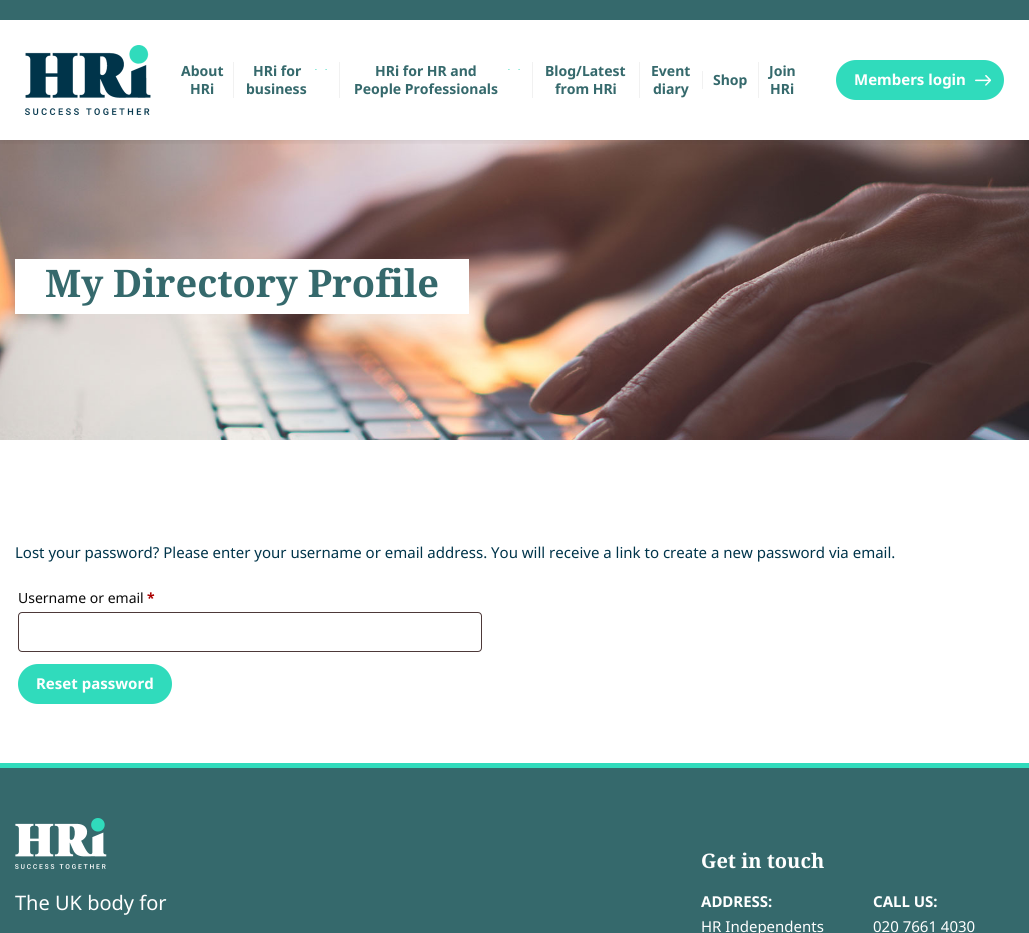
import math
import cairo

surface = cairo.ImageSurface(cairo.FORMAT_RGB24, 1029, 933)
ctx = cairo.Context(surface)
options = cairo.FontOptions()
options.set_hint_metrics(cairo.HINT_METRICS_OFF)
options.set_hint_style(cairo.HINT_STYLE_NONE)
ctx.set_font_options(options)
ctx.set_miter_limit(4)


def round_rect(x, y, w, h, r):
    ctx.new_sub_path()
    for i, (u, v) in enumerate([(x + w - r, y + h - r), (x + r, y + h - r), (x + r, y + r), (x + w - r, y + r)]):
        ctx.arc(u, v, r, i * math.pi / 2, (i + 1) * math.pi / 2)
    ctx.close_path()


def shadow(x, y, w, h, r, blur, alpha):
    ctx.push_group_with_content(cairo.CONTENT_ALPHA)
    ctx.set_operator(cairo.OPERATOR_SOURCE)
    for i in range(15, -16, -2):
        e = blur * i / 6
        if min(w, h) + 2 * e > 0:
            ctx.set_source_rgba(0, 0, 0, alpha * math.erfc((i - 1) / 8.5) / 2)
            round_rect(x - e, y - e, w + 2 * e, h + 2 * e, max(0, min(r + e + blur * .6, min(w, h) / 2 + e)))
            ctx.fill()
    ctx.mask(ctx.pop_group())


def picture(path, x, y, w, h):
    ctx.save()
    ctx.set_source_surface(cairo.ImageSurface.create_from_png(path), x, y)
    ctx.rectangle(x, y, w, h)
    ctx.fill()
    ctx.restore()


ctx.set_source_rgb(1, 1, 1)
ctx.paint()
picture("img4.png", 0, 140, 1029, 300)
ctx.save()
ctx.rectangle(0, 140, 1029, 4)
ctx.clip()
ctx.set_source_rgb(0, 0, 0)
shadow(0, 0, 1029, 140, 0, 5, 0.1)
ctx.restore()
ctx.set_source_rgb(0.208, 0.412, 0.424)
ctx.rectangle(0, 0, 1029, 20)
ctx.fill()
picture("img1.png", 25, 45, 126, 70)
ctx.select_font_face("Noto Sans", cairo.FONT_SLANT_NORMAL, cairo.FONT_WEIGHT_BOLD)
ctx.set_font_size(14)
ctx.move_to(181, 76)
ctx.show_text("About")
ctx.move_to(190, 94)
ctx.show_text("HRi")
ctx.set_source_rgb(0.945, 0.945, 0.945)
ctx.rectangle(233, 62, 1, 36)
ctx.fill()
ctx.set_source_rgb(0.208, 0.412, 0.424)
ctx.move_to(253, 76)
ctx.show_text("HRi for")
picture("img2.png", 315, 69, 12, 1)
ctx.move_to(246, 94)
ctx.show_text("business")
ctx.set_source_rgb(0.945, 0.945, 0.945)
ctx.rectangle(339, 62, 1, 36)
ctx.fill()
ctx.set_source_rgb(0.208, 0.412, 0.424)
ctx.move_to(375, 76)
ctx.show_text("HRi for HR and")
picture("img2.png", 508, 69, 12, 1)
ctx.move_to(354, 94)
ctx.show_text("People Professionals")
ctx.set_source_rgb(0.945, 0.945, 0.945)
ctx.rectangle(532, 62, 1, 36)
ctx.fill()
ctx.set_source_rgb(0.208, 0.412, 0.424)
ctx.move_to(545, 76)
ctx.show_text("Blog/Latest")
ctx.move_to(555, 94)
ctx.show_text("from HRi")
ctx.set_source_rgb(0.945, 0.945, 0.945)
ctx.rectangle(639, 62, 1, 36)
ctx.fill()
ctx.set_source_rgb(0.208, 0.412, 0.424)
ctx.move_to(651, 76)
ctx.show_text("Event")
ctx.move_to(653, 94)
ctx.show_text("diary")
ctx.set_source_rgb(0.945, 0.945, 0.945)
ctx.rectangle(702, 71, 1, 18)
ctx.fill()
ctx.set_source_rgb(0.208, 0.412, 0.424)
ctx.move_to(713, 85)
ctx.show_text("Shop")
ctx.set_source_rgb(0.945, 0.945, 0.945)
ctx.rectangle(758, 62, 1, 36)
ctx.fill()
ctx.set_source_rgb(0.208, 0.412, 0.424)
ctx.move_to(769, 76)
ctx.show_text("Join")
ctx.move_to(770, 94)
ctx.show_text("HRi")
ctx.set_source_rgb(0.188, 0.859, 0.737)
round_rect(837.5, 61.5, 165, 37, 18.5)
ctx.fill_preserve()
ctx.set_line_width(3)
ctx.stroke()
ctx.set_font_size(15)
ctx.set_source_rgb(1, 1, 1)
ctx.move_to(854, 85)
ctx.show_text("Members login")
picture("img3.png", 975, 75, 16, 11)
ctx.rectangle(15, 259, 454, 55)
ctx.fill()
ctx.select_font_face("Noto Serif", cairo.FONT_SLANT_NORMAL, cairo.FONT_WEIGHT_BOLD)
ctx.set_font_size(38)
ctx.set_source_rgb(0.208, 0.412, 0.424)
ctx.move_to(45, 297)
ctx.show_text("My Directory Profile")
ctx.select_font_face("Noto Sans")
ctx.set_font_size(15)
ctx.set_source_rgb(0, 0.204, 0.29)
ctx.move_to(15, 558)
ctx.show_text("Lost your password? Please enter your username or email address. You will receive a link to create a new password via email.")
ctx.set_font_size(14)
ctx.set_source_rgb(0.039, 0.039, 0.039)
ctx.move_to(18, 603)
ctx.show_text("Username or email")
ctx.select_font_face("Noto Sans", cairo.FONT_SLANT_NORMAL, cairo.FONT_WEIGHT_BOLD)
ctx.set_source_rgb(0.667, 0, 0)
ctx.move_to(147, 603)
ctx.show_text("*")
round_rect(18.5, 612.5, 463, 39, 3.5)
ctx.set_source_rgb(0.302, 0.224, 0.224)
ctx.set_line_width(1)
ctx.stroke()
ctx.set_source_rgb(0.188, 0.859, 0.737)
round_rect(19.5, 665.5, 151, 37, 18.5)
ctx.fill_preserve()
ctx.set_line_width(3)
ctx.stroke()
ctx.set_font_size(15)
ctx.set_source_rgb(1, 1, 1)
ctx.move_to(36, 689)
ctx.show_text("Reset password")
ctx.set_source_rgb(0.208, 0.412, 0.424)
ctx.rectangle(0, 768, 1029, 165)
ctx.fill()
ctx.set_source_rgb(0.188, 0.859, 0.737)
ctx.rectangle(0, 763, 1029, 5)
ctx.fill()
picture("img5.png", 15, 818, 92, 51)
ctx.select_font_face("Noto Sans")
ctx.set_font_size(20)
ctx.set_source_rgb(1, 1, 1)
ctx.move_to(15, 910)
ctx.show_text("The UK body for")
ctx.select_font_face("Noto Serif", cairo.FONT_SLANT_NORMAL, cairo.FONT_WEIGHT_BOLD)
ctx.move_to(701, 868)
ctx.show_text("Get in touch")
ctx.select_font_face("Noto Sans", cairo.FONT_SLANT_NORMAL, cairo.FONT_WEIGHT_BOLD)
ctx.set_font_size(15)
ctx.move_to(701, 907)
ctx.show_text("ADDRESS:")
ctx.select_font_face("Noto Sans")
ctx.move_to(701, 932)
ctx.show_text("HR Independents")
ctx.select_font_face("Noto Sans", cairo.FONT_SLANT_NORMAL, cairo.FONT_WEIGHT_BOLD)
ctx.move_to(873, 907)
ctx.show_text("CALL US:")
ctx.select_font_face("Noto Sans")
ctx.move_to(873, 932)
ctx.show_text("020 7661 4030")
surface.write_to_png("page.png")
